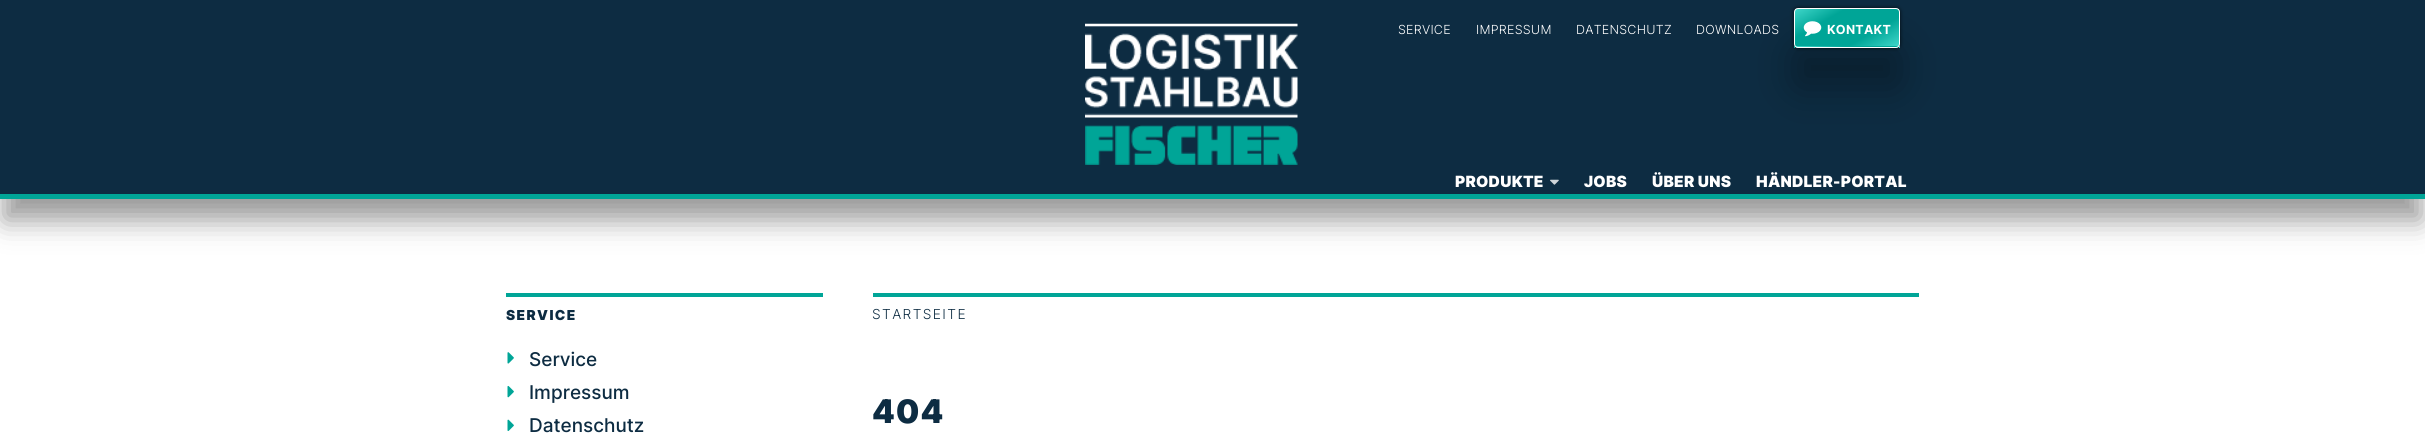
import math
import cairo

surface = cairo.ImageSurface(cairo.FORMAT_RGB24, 2425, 441)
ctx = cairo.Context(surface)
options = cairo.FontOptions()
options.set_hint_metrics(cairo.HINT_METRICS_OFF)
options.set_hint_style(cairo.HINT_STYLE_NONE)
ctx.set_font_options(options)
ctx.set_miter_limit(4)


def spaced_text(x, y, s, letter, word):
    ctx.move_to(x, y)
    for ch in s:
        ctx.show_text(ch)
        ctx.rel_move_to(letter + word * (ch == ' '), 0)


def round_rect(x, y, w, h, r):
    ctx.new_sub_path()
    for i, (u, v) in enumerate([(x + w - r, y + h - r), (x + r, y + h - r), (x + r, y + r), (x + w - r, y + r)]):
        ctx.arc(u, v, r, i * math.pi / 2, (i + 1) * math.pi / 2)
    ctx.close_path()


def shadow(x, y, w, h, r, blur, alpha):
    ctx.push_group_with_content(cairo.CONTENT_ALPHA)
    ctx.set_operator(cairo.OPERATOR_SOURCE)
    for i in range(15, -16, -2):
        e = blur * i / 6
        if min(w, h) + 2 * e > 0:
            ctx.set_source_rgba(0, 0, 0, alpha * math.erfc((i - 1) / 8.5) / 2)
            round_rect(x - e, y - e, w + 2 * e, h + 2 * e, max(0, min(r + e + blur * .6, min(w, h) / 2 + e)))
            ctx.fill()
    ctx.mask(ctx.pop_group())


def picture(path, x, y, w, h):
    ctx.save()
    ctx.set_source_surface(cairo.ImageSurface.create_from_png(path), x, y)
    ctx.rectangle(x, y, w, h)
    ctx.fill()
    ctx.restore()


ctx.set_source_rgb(1, 1, 1)
ctx.paint()
ctx.set_source_rgb(0, 0, 0)
shadow(4, 29, 2417, 191, 0, 14, 0.4)
ctx.set_source_rgb(0.051, 0.173, 0.259)
ctx.rectangle(0, 0, 2425, 194)
ctx.fill()
ctx.set_source_rgb(0, 0.647, 0.592)
ctx.rectangle(0, 194, 2425, 5)
ctx.fill()
picture("img1.png", 1085, 23, 213, 142)
ctx.select_font_face("Inter Light")
ctx.set_font_size(12.5)
ctx.set_source_rgb(1, 1, 1)
spaced_text(1398, 34, "SERVICE", 0.25, 0)
spaced_text(1476, 34, "IMPRESSUM", 0.25, 0)
spaced_text(1576, 34, "DATENSCHUTZ", 0.25, 0)
ctx.set_source_rgb(0, 0, 0)
shadow(1794, 48, 106, 40, 4, 20, 0.3)
ctx.set_source_rgb(1, 1, 1)
spaced_text(1696, 34, "DOWNLOADS", 0.25, 0)
ctx.set_source_rgb(0, 0, 0)
shadow(1794, 8, 106, 40, 4, 2, 0.8)
gradient = cairo.LinearGradient(1868, 64, 1826, -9)
gradient.add_color_stop_rgba(0, 0.247, 0.839, 0.788, 1)
gradient.add_color_stop_rgba(0.3, 0, 0.647, 0.592, 1)
gradient.add_color_stop_rgba(0.7, 0, 0.647, 0.592, 1)
gradient.add_color_stop_rgba(1, 0.247, 0.839, 0.788, 1)
ctx.set_source(gradient)
ctx.rectangle(1795, 9, 104, 37)
ctx.fill()
gradient = cairo.LinearGradient(1764, 102, 1722, 28)
gradient.add_color_stop_rgba(0, 0.247, 0.839, 0.788, 1)
gradient.add_color_stop_rgba(0.3, 0, 0.647, 0.592, 1)
gradient.add_color_stop_rgba(0.7, 0, 0.647, 0.592, 1)
gradient.add_color_stop_rgba(1, 0.247, 0.839, 0.788, 1)
ctx.set_source(gradient)
ctx.rectangle(1794, 46, 1, 2)
ctx.fill()
ctx.save()
round_rect(1794, 8, 106, 40, 4)
ctx.clip()
gradient = cairo.LinearGradient(1868, 102, 1826, 28)
gradient.add_color_stop_rgba(0, 0.247, 0.839, 0.788, 1)
gradient.add_color_stop_rgba(0.3, 0, 0.647, 0.592, 1)
gradient.add_color_stop_rgba(0.7, 0, 0.647, 0.592, 1)
gradient.add_color_stop_rgba(1, 0.247, 0.839, 0.788, 1)
ctx.set_source(gradient)
ctx.rectangle(1795, 46, 104, 2)
ctx.fill()
ctx.restore()
gradient = cairo.LinearGradient(1972, 102, 1930, 28)
gradient.add_color_stop_rgba(0, 0.247, 0.839, 0.788, 1)
gradient.add_color_stop_rgba(0.3, 0, 0.647, 0.592, 1)
gradient.add_color_stop_rgba(0.7, 0, 0.647, 0.592, 1)
gradient.add_color_stop_rgba(1, 0.247, 0.839, 0.788, 1)
ctx.set_source(gradient)
ctx.rectangle(1899, 46, 1, 2)
ctx.fill()
round_rect(1794.5, 8.5, 105, 39, 3.5)
ctx.set_source_rgb(1, 1, 1)
ctx.set_line_width(1)
ctx.stroke()
picture("img2.png", 1803, 21, 19, 16)
ctx.select_font_face("Inter", cairo.FONT_SLANT_NORMAL, cairo.FONT_WEIGHT_BOLD)
spaced_text(1827, 34, "KONTAKT", 0.25, 0)
ctx.select_font_face("Inter Black")
ctx.set_font_size(15.5)
spaced_text(1455, 187, "PRODUKTE", 0.25, 0)
picture("img3.png", 1550, 179, 9, 6)
spaced_text(1584, 187, "JOBS", 0.25, 0)
spaced_text(1652, 187, "ÜBER UNS", 0.25, 0)
spaced_text(1756, 187, "HÄNDLER-PORTAL", 0.25, 0)
ctx.set_source_rgb(0, 0.647, 0.592)
ctx.rectangle(506, 293, 317, 4)
ctx.fill()
ctx.set_font_size(13.75)
ctx.set_source_rgb(0.051, 0.173, 0.259)
spaced_text(506, 320, "SERVICE", 1.4, 0)
picture("img4.png", 507, 352, 7, 12)
ctx.select_font_face("Inter Medium")
ctx.set_font_size(19)
ctx.move_to(529, 366)
ctx.show_text("Service")
picture("img5.png", 507, 385, 7, 13)
ctx.move_to(529, 399)
ctx.show_text("Impressum")
picture("img6.png", 507, 419, 7, 12)
ctx.move_to(529, 432)
ctx.show_text("Datenschutz")
ctx.set_source_rgb(0, 0.647, 0.592)
ctx.rectangle(873, 293, 1046, 4)
ctx.fill()
ctx.select_font_face("Inter Light")
ctx.set_font_size(13.75)
ctx.set_source_rgb(0.051, 0.173, 0.259)
spaced_text(872, 319, "STARTSEITE", 1.4, 0)
ctx.select_font_face("Inter Black")
ctx.set_font_size(32.5)
spaced_text(872, 423, "404", 1, 0)
surface.write_to_png("page.png")
